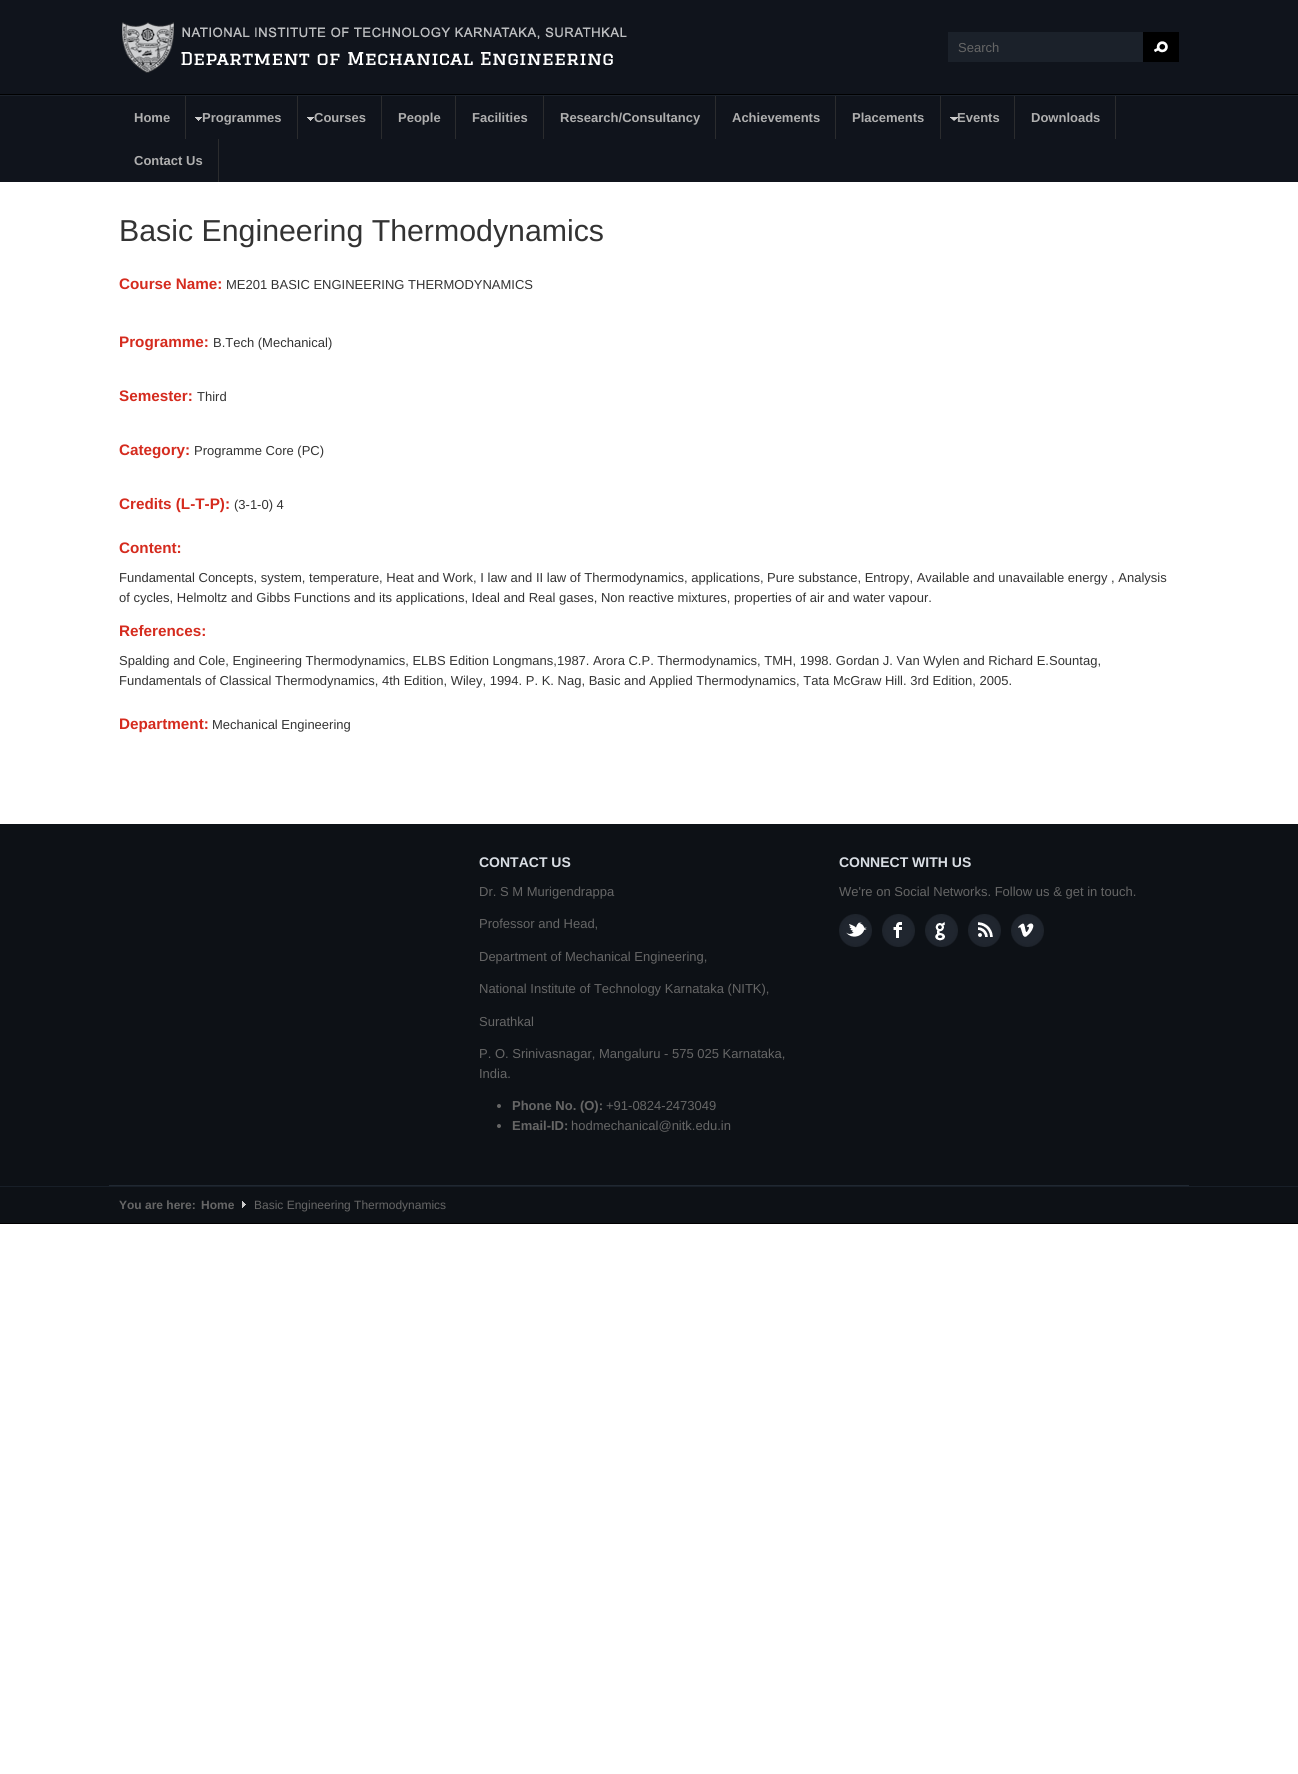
import math
import cairo

surface = cairo.ImageSurface(cairo.FORMAT_RGB24, 1298, 1774)
ctx = cairo.Context(surface)
options = cairo.FontOptions()
options.set_hint_metrics(cairo.HINT_METRICS_OFF)
options.set_hint_style(cairo.HINT_STYLE_NONE)
ctx.set_font_options(options)
ctx.set_miter_limit(4)


def picture(path, x, y, w, h):
    ctx.save()
    ctx.set_source_surface(cairo.ImageSurface.create_from_png(path), x, y)
    ctx.rectangle(x, y, w, h)
    ctx.fill()
    ctx.restore()


ctx.set_source_rgb(1, 1, 1)
ctx.paint()
ctx.set_source_rgb(0.063, 0.082, 0.11)
ctx.rectangle(0, 0, 1298, 94)
ctx.fill()
picture("img1.png", 0, 94, 1298, 2)
picture("img2.png", 122, 22, 505, 51)
ctx.set_source_rgb(0.106, 0.129, 0.165)
ctx.rectangle(948, 32, 195, 30)
ctx.fill()
ctx.select_font_face("Liberation Sans")
ctx.set_font_size(13)
ctx.set_source_rgb(0.4, 0.4, 0.4)
ctx.move_to(958, 52)
ctx.show_text("Search")
ctx.set_source_rgb(0, 0, 0)
ctx.rectangle(1143, 32, 36, 30)
ctx.fill()
picture("img3.png", 1154, 41, 14, 12)
ctx.set_source_rgb(0.063, 0.082, 0.11)
ctx.rectangle(0, 96, 1298, 86)
ctx.fill()
ctx.set_source_rgb(0.169, 0.173, 0.18)
ctx.rectangle(185, 96, 1, 43)
ctx.fill()
ctx.select_font_face("Liberation Sans", cairo.FONT_SLANT_NORMAL, cairo.FONT_WEIGHT_BOLD)
ctx.set_source_rgb(0.686, 0.686, 0.686)
ctx.move_to(134, 122)
ctx.show_text("Home")
ctx.set_source_rgb(0.169, 0.173, 0.18)
ctx.rectangle(297, 96, 1, 43)
ctx.fill()
picture("img4.png", 195, 117, 7, 4)
ctx.set_source_rgb(0.686, 0.686, 0.686)
ctx.move_to(202, 122)
ctx.show_text("Programmes")
ctx.set_source_rgb(0.169, 0.173, 0.18)
ctx.rectangle(381, 96, 1, 43)
ctx.fill()
picture("img4.png", 307, 117, 7, 4)
ctx.set_source_rgb(0.686, 0.686, 0.686)
ctx.move_to(314, 122)
ctx.show_text("Courses")
ctx.set_source_rgb(0.169, 0.173, 0.18)
ctx.rectangle(455, 96, 1, 43)
ctx.fill()
ctx.set_source_rgb(0.686, 0.686, 0.686)
ctx.move_to(398, 122)
ctx.show_text("People")
ctx.set_source_rgb(0.169, 0.173, 0.18)
ctx.rectangle(543, 96, 1, 43)
ctx.fill()
ctx.set_source_rgb(0.686, 0.686, 0.686)
ctx.move_to(472, 122)
ctx.show_text("Facilities")
ctx.set_source_rgb(0.169, 0.173, 0.18)
ctx.rectangle(715, 96, 1, 43)
ctx.fill()
ctx.set_source_rgb(0.686, 0.686, 0.686)
ctx.move_to(560, 122)
ctx.show_text("Research/Consultancy")
ctx.set_source_rgb(0.169, 0.173, 0.18)
ctx.rectangle(835, 96, 1, 43)
ctx.fill()
ctx.set_source_rgb(0.686, 0.686, 0.686)
ctx.move_to(732, 122)
ctx.show_text("Achievements")
ctx.set_source_rgb(0.169, 0.173, 0.18)
ctx.rectangle(940, 96, 1, 43)
ctx.fill()
ctx.set_source_rgb(0.686, 0.686, 0.686)
ctx.move_to(852, 122)
ctx.show_text("Placements")
ctx.set_source_rgb(0.169, 0.173, 0.18)
ctx.rectangle(1014, 96, 1, 43)
ctx.fill()
ctx.set_source_rgb(0.686, 0.686, 0.686)
ctx.move_to(957, 122)
ctx.show_text("Events")
picture("img5.png", 950, 117, 8, 4)
ctx.set_source_rgb(0.169, 0.173, 0.18)
ctx.rectangle(1115, 96, 1, 43)
ctx.fill()
ctx.set_source_rgb(0.686, 0.686, 0.686)
ctx.move_to(1031, 122)
ctx.show_text("Downloads")
ctx.set_source_rgb(0.169, 0.173, 0.18)
ctx.rectangle(218, 139, 1, 43)
ctx.fill()
ctx.set_source_rgb(0.686, 0.686, 0.686)
ctx.move_to(134, 165)
ctx.show_text("Contact Us")
ctx.select_font_face("Liberation Sans")
ctx.set_font_size(30.3)
ctx.set_source_rgb(0.2, 0.2, 0.2)
ctx.move_to(119, 241)
ctx.show_text("Basic Engineering Thermodynamics")
ctx.select_font_face("Liberation Sans", cairo.FONT_SLANT_NORMAL, cairo.FONT_WEIGHT_BOLD)
ctx.set_font_size(15.25)
ctx.set_source_rgb(0.835, 0.169, 0.118)
ctx.move_to(119, 289)
ctx.show_text("Course Name:")
ctx.select_font_face("Liberation Sans")
ctx.set_font_size(13)
ctx.set_source_rgb(0.2, 0.2, 0.2)
ctx.move_to(226, 289)
ctx.show_text("ME201 BASIC ENGINEERING THERMODYNAMICS")
ctx.select_font_face("Liberation Sans", cairo.FONT_SLANT_NORMAL, cairo.FONT_WEIGHT_BOLD)
ctx.set_font_size(15.25)
ctx.set_source_rgb(0.835, 0.169, 0.118)
ctx.move_to(119, 347)
ctx.show_text("Programme:")
ctx.select_font_face("Liberation Sans")
ctx.set_font_size(13)
ctx.set_source_rgb(0.2, 0.2, 0.2)
ctx.move_to(213, 347)
ctx.show_text("B.Tech (Mechanical)")
ctx.select_font_face("Liberation Sans", cairo.FONT_SLANT_NORMAL, cairo.FONT_WEIGHT_BOLD)
ctx.set_font_size(15.25)
ctx.set_source_rgb(0.835, 0.169, 0.118)
ctx.move_to(119, 401)
ctx.show_text("Semester:")
ctx.select_font_face("Liberation Sans")
ctx.set_font_size(13)
ctx.set_source_rgb(0.2, 0.2, 0.2)
ctx.move_to(197, 401)
ctx.show_text("Third")
ctx.select_font_face("Liberation Sans", cairo.FONT_SLANT_NORMAL, cairo.FONT_WEIGHT_BOLD)
ctx.set_font_size(15.25)
ctx.set_source_rgb(0.835, 0.169, 0.118)
ctx.move_to(119, 455)
ctx.show_text("Category:")
ctx.select_font_face("Liberation Sans")
ctx.set_font_size(13)
ctx.set_source_rgb(0.2, 0.2, 0.2)
ctx.move_to(194, 455)
ctx.show_text("Programme Core (PC)")
ctx.select_font_face("Liberation Sans", cairo.FONT_SLANT_NORMAL, cairo.FONT_WEIGHT_BOLD)
ctx.set_font_size(15.25)
ctx.set_source_rgb(0.835, 0.169, 0.118)
ctx.move_to(119, 509)
ctx.show_text("Credits (L-T-P):")
ctx.select_font_face("Liberation Sans")
ctx.set_font_size(13)
ctx.set_source_rgb(0.2, 0.2, 0.2)
ctx.move_to(234, 509)
ctx.show_text("(3-1-0) 4")
ctx.select_font_face("Liberation Sans", cairo.FONT_SLANT_NORMAL, cairo.FONT_WEIGHT_BOLD)
ctx.set_font_size(15.25)
ctx.set_source_rgb(0.835, 0.169, 0.118)
ctx.move_to(119, 553)
ctx.show_text("Content:")
ctx.select_font_face("Liberation Sans")
ctx.set_font_size(13)
ctx.set_source_rgb(0.2, 0.2, 0.2)
ctx.move_to(119, 582)
ctx.show_text("Fundamental Concepts, system, temperature, Heat and Work, I law and II law of Thermodynamics, applications, Pure substance, Entropy, Available and unavailable energy , Analysis")
ctx.move_to(119, 602)
ctx.show_text("of cycles, Helmoltz and Gibbs Functions and its applications, Ideal and Real gases, Non reactive mixtures, properties of air and water vapour.")
ctx.select_font_face("Liberation Sans", cairo.FONT_SLANT_NORMAL, cairo.FONT_WEIGHT_BOLD)
ctx.set_font_size(15.25)
ctx.set_source_rgb(0.835, 0.169, 0.118)
ctx.move_to(119, 636)
ctx.show_text("References:")
ctx.select_font_face("Liberation Sans")
ctx.set_font_size(13)
ctx.set_source_rgb(0.2, 0.2, 0.2)
ctx.move_to(119, 665)
ctx.show_text("Spalding and Cole, Engineering Thermodynamics, ELBS Edition Longmans,1987. Arora C.P. Thermodynamics, TMH, 1998. Gordan J. Van Wylen and Richard E.Sountag,")
ctx.move_to(119, 685)
ctx.show_text("Fundamentals of Classical Thermodynamics, 4th Edition, Wiley, 1994. P. K. Nag, Basic and Applied Thermodynamics, Tata McGraw Hill. 3rd Edition, 2005.")
ctx.select_font_face("Liberation Sans", cairo.FONT_SLANT_NORMAL, cairo.FONT_WEIGHT_BOLD)
ctx.set_font_size(15.25)
ctx.set_source_rgb(0.835, 0.169, 0.118)
ctx.move_to(119, 729)
ctx.show_text("Department:")
ctx.select_font_face("Liberation Sans")
ctx.set_font_size(13)
ctx.set_source_rgb(0.2, 0.2, 0.2)
ctx.move_to(212, 729)
ctx.show_text("Mechanical Engineering")
ctx.set_source_rgb(0.051, 0.067, 0.086)
ctx.rectangle(0, 824, 1298, 362)
ctx.fill()
ctx.set_source_rgb(0.125, 0.157, 0.192)
ctx.rectangle(109, 1185, 1080, 1)
ctx.fill()
ctx.select_font_face("Liberation Sans", cairo.FONT_SLANT_NORMAL, cairo.FONT_WEIGHT_BOLD)
ctx.set_font_size(14)
ctx.set_source_rgb(0.851, 0.871, 0.894)
ctx.move_to(479, 867)
ctx.show_text("CONTACT US")
ctx.select_font_face("Liberation Sans")
ctx.set_font_size(13)
ctx.set_source_rgb(0.4, 0.4, 0.4)
ctx.move_to(479, 896)
ctx.show_text("Dr. S M Murigendrappa")
ctx.move_to(479, 928)
ctx.show_text("Professor and Head,")
ctx.move_to(479, 961)
ctx.show_text("Department of Mechanical Engineering,")
ctx.move_to(479, 993)
ctx.show_text("National Institute of Technology Karnataka (NITK),")
ctx.move_to(479, 1026)
ctx.show_text("Surathkal")
ctx.move_to(479, 1058)
ctx.show_text("P. O. Srinivasnagar, Mangaluru - 575 025 Karnataka,")
ctx.move_to(479, 1078)
ctx.show_text("India.")
ctx.new_path()
ctx.arc(499, 1106, 2, 0, 2 * math.pi)
ctx.fill()
ctx.select_font_face("Liberation Sans", cairo.FONT_SLANT_NORMAL, cairo.FONT_WEIGHT_BOLD)
ctx.move_to(512, 1110)
ctx.show_text("Phone No. (O):")
ctx.select_font_face("Liberation Sans")
ctx.move_to(606, 1110)
ctx.show_text("+91-0824-2473049")
ctx.new_path()
ctx.arc(499, 1126, 2, 0, 2 * math.pi)
ctx.fill()
ctx.select_font_face("Liberation Sans", cairo.FONT_SLANT_NORMAL, cairo.FONT_WEIGHT_BOLD)
ctx.move_to(512, 1130)
ctx.show_text("Email-ID:")
ctx.select_font_face("Liberation Sans")
ctx.move_to(571, 1130)
ctx.show_text("hodmechanical@nitk.edu.in")
ctx.select_font_face("Liberation Sans", cairo.FONT_SLANT_NORMAL, cairo.FONT_WEIGHT_BOLD)
ctx.set_font_size(14)
ctx.set_source_rgb(0.851, 0.871, 0.894)
ctx.move_to(839, 867)
ctx.show_text("CONNECT WITH US")
ctx.select_font_face("Liberation Sans")
ctx.set_font_size(13)
ctx.set_source_rgb(0.4, 0.4, 0.4)
ctx.move_to(839, 896)
ctx.show_text("We're on Social Networks. Follow us & get in touch.")
picture("img6.png", 839, 914, 33, 33)
picture("img7.png", 882, 914, 33, 33)
picture("img8.png", 925, 914, 33, 33)
picture("img9.png", 968, 914, 33, 33)
picture("img10.png", 1011, 914, 33, 33)
ctx.set_source_rgb(0.051, 0.067, 0.086)
ctx.rectangle(0, 1187, 1298, 36)
ctx.fill()
ctx.set_source_rgb(0.094, 0.122, 0.157)
ctx.rectangle(0, 1186, 1298, 1)
ctx.fill()
ctx.set_source_rgb(0, 0, 0)
ctx.rectangle(0, 1223, 1298, 1)
ctx.fill()
ctx.select_font_face("Liberation Sans", cairo.FONT_SLANT_NORMAL, cairo.FONT_WEIGHT_BOLD)
ctx.set_font_size(12)
ctx.set_source_rgb(0.4, 0.4, 0.4)
ctx.move_to(119, 1209)
ctx.show_text("You are here:")
ctx.move_to(201, 1209)
ctx.show_text("Home")
picture("img11.png", 242, 1201, 4, 7)
ctx.select_font_face("Liberation Sans")
ctx.move_to(254, 1209)
ctx.show_text("Basic Engineering Thermodynamics")
surface.write_to_png("page.png")
